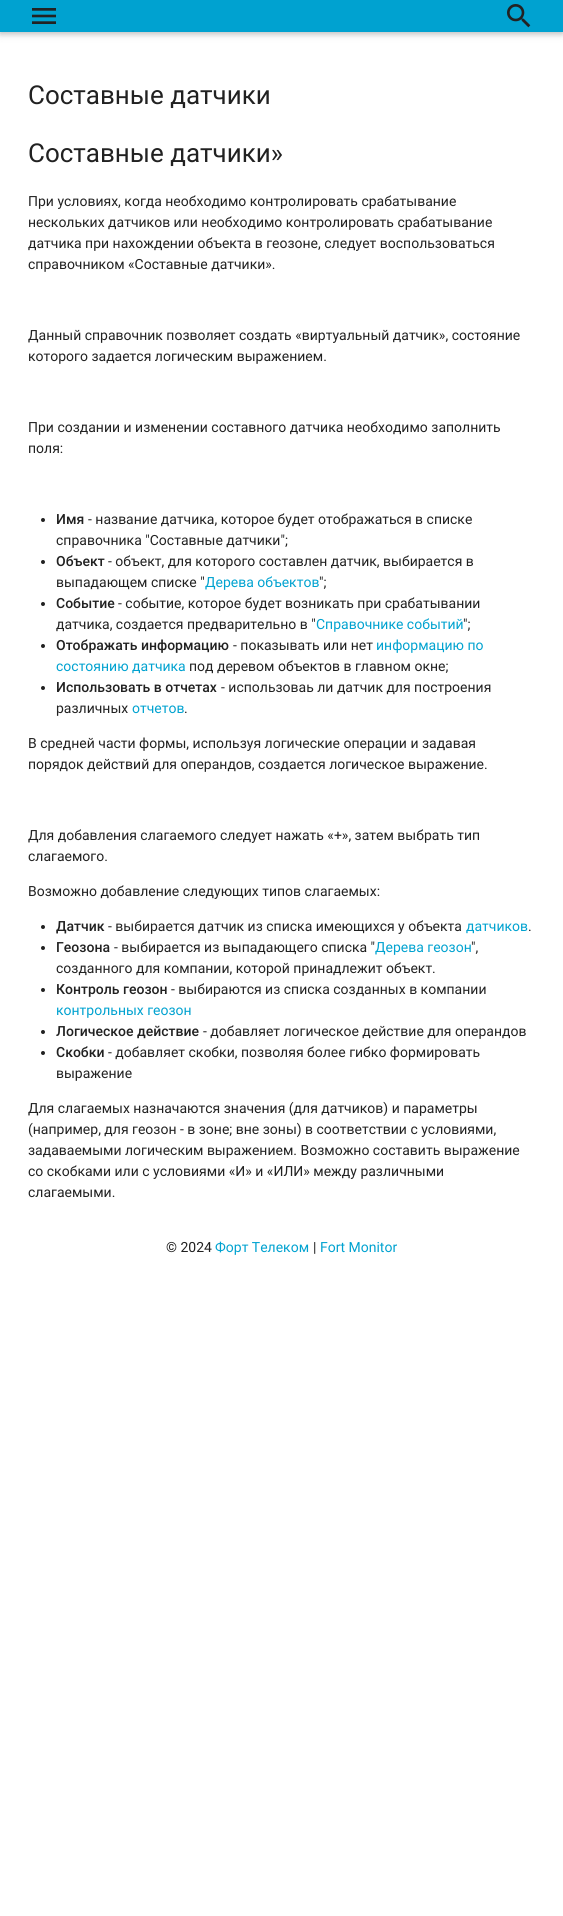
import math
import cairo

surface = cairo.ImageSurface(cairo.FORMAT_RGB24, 563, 1916)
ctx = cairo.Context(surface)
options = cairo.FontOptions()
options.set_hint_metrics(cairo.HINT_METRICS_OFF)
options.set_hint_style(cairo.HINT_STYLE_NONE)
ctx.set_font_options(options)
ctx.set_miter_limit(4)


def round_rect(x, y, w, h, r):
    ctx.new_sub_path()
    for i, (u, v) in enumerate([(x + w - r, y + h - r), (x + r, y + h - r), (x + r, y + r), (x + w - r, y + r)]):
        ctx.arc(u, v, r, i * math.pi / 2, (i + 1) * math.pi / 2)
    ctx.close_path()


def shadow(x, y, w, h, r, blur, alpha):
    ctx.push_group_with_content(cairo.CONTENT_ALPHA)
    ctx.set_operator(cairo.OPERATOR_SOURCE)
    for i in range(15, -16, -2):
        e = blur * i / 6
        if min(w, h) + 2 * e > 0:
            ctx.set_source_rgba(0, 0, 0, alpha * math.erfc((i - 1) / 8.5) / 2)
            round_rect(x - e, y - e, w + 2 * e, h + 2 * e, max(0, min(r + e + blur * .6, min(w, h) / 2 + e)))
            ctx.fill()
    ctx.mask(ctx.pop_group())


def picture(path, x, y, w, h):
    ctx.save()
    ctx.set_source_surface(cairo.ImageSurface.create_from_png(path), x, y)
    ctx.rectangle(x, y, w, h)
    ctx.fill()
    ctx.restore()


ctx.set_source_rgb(1, 1, 1)
ctx.paint()
ctx.set_source_rgb(0, 0, 0)
shadow(0, 2, 563, 32, 0, 5, 0.12)
shadow(0, 2, 563, 32, 0, 2.5, 0.16)
ctx.set_source_rgb(0, 0.635, 0.816)
ctx.rectangle(0, 0, 563, 32)
ctx.fill()
picture("img1.png", 32, 8, 24, 16)
picture("img2.png", 507, 4, 24, 24)
ctx.select_font_face("Roboto")
ctx.set_font_size(26)
ctx.set_source_rgb(0.129, 0.129, 0.129)
ctx.move_to(28, 104)
ctx.show_text("Составные датчики")
ctx.move_to(28, 162)
ctx.show_text("Составные датчики»")
ctx.set_font_size(14)
ctx.move_to(28, 206)
ctx.show_text("При условиях, когда необходимо контролировать срабатывание")
ctx.move_to(28, 227)
ctx.show_text("нескольких датчиков или необходимо контролировать срабатывание")
ctx.move_to(28, 248)
ctx.show_text("датчика при нахождении объекта в геозоне, следует воспользоваться")
ctx.move_to(28, 269)
ctx.show_text("справочником «Составные датчики».")
ctx.move_to(28, 340)
ctx.show_text("Данный справочник позволяет создать «виртуальный датчик», состояние")
ctx.move_to(28, 361)
ctx.show_text("которого задается логическим выражением.")
ctx.move_to(28, 432)
ctx.show_text("При создании и изменении составного датчика необходимо заполнить")
ctx.move_to(28, 453)
ctx.show_text("поля:")
ctx.new_path()
ctx.arc(43, 520, 2, 0, 2 * math.pi)
ctx.fill()
ctx.select_font_face("Roboto Medium")
ctx.move_to(56, 524)
ctx.show_text("Имя")
ctx.select_font_face("Roboto")
ctx.move_to(88, 524)
ctx.show_text("- название датчика, которое будет отображаться в списке")
ctx.move_to(56, 545)
ctx.show_text("справочника \"Составные датчики\";")
ctx.new_path()
ctx.arc(43, 562, 2, 0, 2 * math.pi)
ctx.fill()
ctx.select_font_face("Roboto Medium")
ctx.move_to(56, 566)
ctx.show_text("Объект")
ctx.select_font_face("Roboto")
ctx.move_to(108, 566)
ctx.show_text("- объект, для которого составлен датчик, выбирается в")
ctx.move_to(56, 587)
ctx.show_text("выпадающем списке \"")
ctx.set_source_rgb(0, 0.635, 0.816)
ctx.move_to(205, 587)
ctx.show_text("Дерева объектов")
ctx.set_source_rgb(0.129, 0.129, 0.129)
ctx.move_to(319, 587)
ctx.show_text("\";")
ctx.new_path()
ctx.arc(43, 604, 2, 0, 2 * math.pi)
ctx.fill()
ctx.select_font_face("Roboto Medium")
ctx.move_to(56, 608)
ctx.show_text("Событие")
ctx.select_font_face("Roboto")
ctx.move_to(118, 608)
ctx.show_text("- событие, которое будет возникать при срабатывании")
ctx.move_to(56, 629)
ctx.show_text("датчика, создается предварительно в \"")
ctx.set_source_rgb(0, 0.635, 0.816)
ctx.move_to(316, 629)
ctx.show_text("Справочнике событий")
ctx.set_source_rgb(0.129, 0.129, 0.129)
ctx.move_to(463, 629)
ctx.show_text("\";")
ctx.new_path()
ctx.arc(43, 646, 2, 0, 2 * math.pi)
ctx.fill()
ctx.select_font_face("Roboto Medium")
ctx.move_to(56, 650)
ctx.show_text("Отображать информацию")
ctx.select_font_face("Roboto")
ctx.move_to(233, 650)
ctx.show_text("- показывать или нет")
ctx.set_source_rgb(0, 0.635, 0.816)
ctx.move_to(376, 650)
ctx.show_text("информацию по")
ctx.move_to(56, 671)
ctx.show_text("состоянию датчика")
ctx.set_source_rgb(0.129, 0.129, 0.129)
ctx.move_to(189, 671)
ctx.show_text("под деревом объектов в главном окне;")
ctx.new_path()
ctx.arc(43, 688, 2, 0, 2 * math.pi)
ctx.fill()
ctx.select_font_face("Roboto Medium")
ctx.move_to(56, 692)
ctx.show_text("Использовать в отчетах")
ctx.select_font_face("Roboto")
ctx.move_to(221, 692)
ctx.show_text("- использоваь ли датчик для построения")
ctx.move_to(56, 713)
ctx.show_text("различных")
ctx.set_source_rgb(0, 0.635, 0.816)
ctx.move_to(132, 713)
ctx.show_text("отчетов")
ctx.set_source_rgb(0.129, 0.129, 0.129)
ctx.move_to(184, 713)
ctx.show_text(".")
ctx.move_to(28, 748)
ctx.show_text("В средней части формы, используя логические операции и задавая")
ctx.move_to(28, 769)
ctx.show_text("порядок действий для операндов, создается логическое выражение.")
ctx.move_to(28, 840)
ctx.show_text("Для добавления слагаемого следует нажать «+», затем выбрать тип")
ctx.move_to(28, 861)
ctx.show_text("слагаемого.")
ctx.move_to(28, 896)
ctx.show_text("Возможно добавление следующих типов слагаемых:")
ctx.new_path()
ctx.arc(43, 927, 2, 0, 2 * math.pi)
ctx.fill()
ctx.select_font_face("Roboto Medium")
ctx.move_to(56, 931)
ctx.show_text("Датчик")
ctx.select_font_face("Roboto")
ctx.move_to(108, 931)
ctx.show_text("- выбирается датчик из списка имеющихся у объекта")
ctx.set_source_rgb(0, 0.635, 0.816)
ctx.move_to(466, 931)
ctx.show_text("датчиков")
ctx.set_source_rgb(0.129, 0.129, 0.129)
ctx.move_to(528, 931)
ctx.show_text(".")
ctx.new_path()
ctx.arc(43, 948, 2, 0, 2 * math.pi)
ctx.fill()
ctx.select_font_face("Roboto Medium")
ctx.move_to(56, 952)
ctx.show_text("Геозона")
ctx.select_font_face("Roboto")
ctx.move_to(114, 952)
ctx.show_text("- выбирается из выпадающего списка \"")
ctx.set_source_rgb(0, 0.635, 0.816)
ctx.move_to(375, 952)
ctx.show_text("Дерева геозон")
ctx.set_source_rgb(0.129, 0.129, 0.129)
ctx.move_to(471, 952)
ctx.show_text("\",")
ctx.move_to(56, 973)
ctx.show_text("созданного для компании, которой принадлежит объект.")
ctx.new_path()
ctx.arc(43, 990, 2, 0, 2 * math.pi)
ctx.fill()
ctx.select_font_face("Roboto Medium")
ctx.move_to(56, 994)
ctx.show_text("Контроль геозон")
ctx.select_font_face("Roboto")
ctx.move_to(171, 994)
ctx.show_text("- выбираются из списка созданных в компании")
ctx.set_source_rgb(0, 0.635, 0.816)
ctx.move_to(56, 1015)
ctx.show_text("контрольных геозон")
ctx.set_source_rgb(0.129, 0.129, 0.129)
ctx.new_path()
ctx.arc(43, 1032, 2, 0, 2 * math.pi)
ctx.fill()
ctx.select_font_face("Roboto Medium")
ctx.move_to(56, 1036)
ctx.show_text("Логическое действие")
ctx.select_font_face("Roboto")
ctx.move_to(203, 1036)
ctx.show_text("- добавляет логическое действие для операндов")
ctx.new_path()
ctx.arc(43, 1053, 2, 0, 2 * math.pi)
ctx.fill()
ctx.select_font_face("Roboto Medium")
ctx.move_to(56, 1057)
ctx.show_text("Скобки")
ctx.select_font_face("Roboto")
ctx.move_to(108, 1057)
ctx.show_text("- добавляет скобки, позволяя более гибко формировать")
ctx.move_to(56, 1078)
ctx.show_text("выражение")
ctx.move_to(28, 1113)
ctx.show_text("Для слагаемых назначаются значения (для датчиков) и параметры")
ctx.move_to(28, 1134)
ctx.show_text("(например, для геозон - в зоне; вне зоны) в соответствии с условиями,")
ctx.move_to(28, 1155)
ctx.show_text("задаваемыми логическим выражением. Возможно составить выражение")
ctx.move_to(28, 1176)
ctx.show_text("со скобками или с условиями «И» и «ИЛИ» между различными")
ctx.move_to(28, 1197)
ctx.show_text("слагаемыми.")
ctx.move_to(166, 1252)
ctx.show_text("© 2024")
ctx.set_source_rgb(0, 0.635, 0.816)
ctx.move_to(215, 1252)
ctx.show_text("Форт Телеком")
ctx.set_source_rgb(0.129, 0.129, 0.129)
ctx.move_to(313, 1252)
ctx.show_text("|")
ctx.set_source_rgb(0, 0.635, 0.816)
ctx.move_to(320, 1252)
ctx.show_text("Fort Monitor")
surface.write_to_png("page.png")
